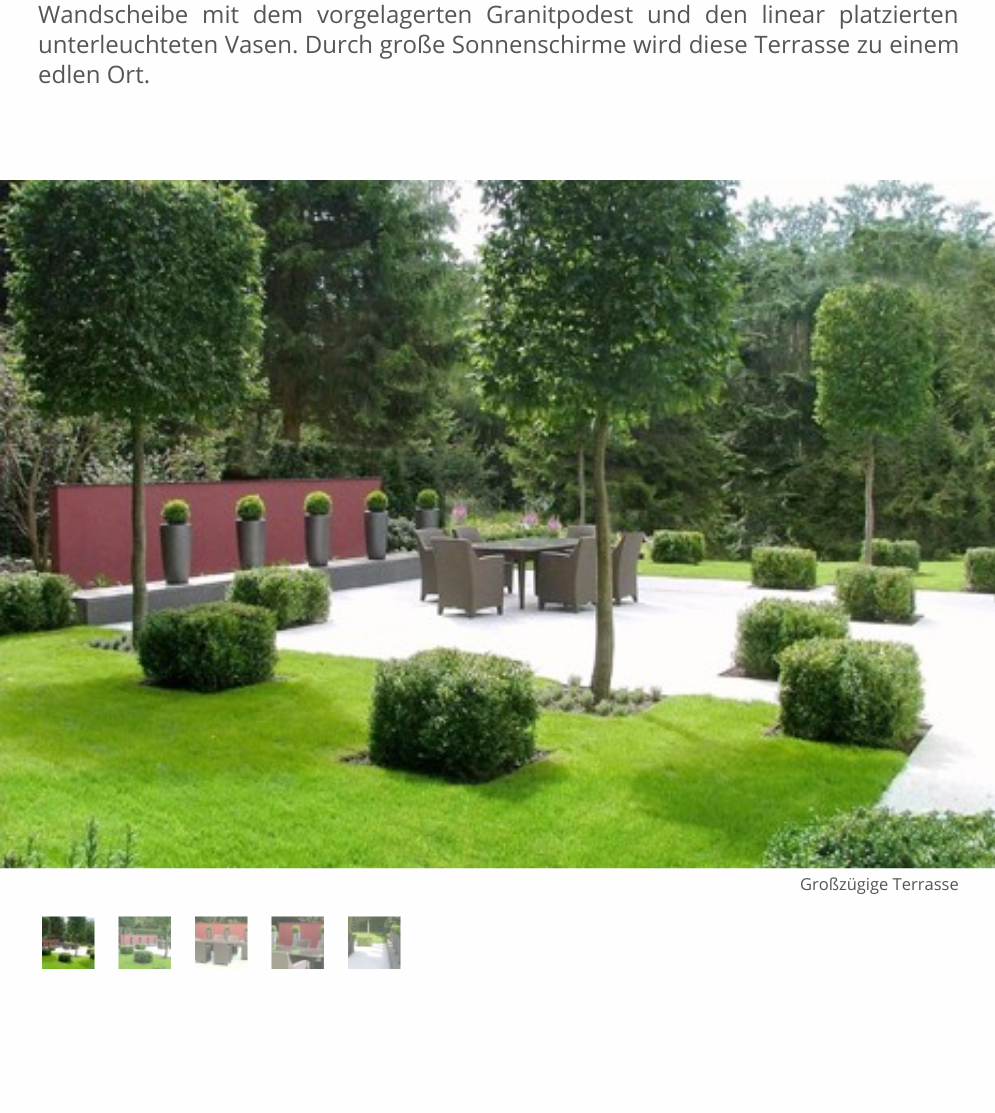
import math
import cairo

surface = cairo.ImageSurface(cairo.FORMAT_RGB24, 995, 1113)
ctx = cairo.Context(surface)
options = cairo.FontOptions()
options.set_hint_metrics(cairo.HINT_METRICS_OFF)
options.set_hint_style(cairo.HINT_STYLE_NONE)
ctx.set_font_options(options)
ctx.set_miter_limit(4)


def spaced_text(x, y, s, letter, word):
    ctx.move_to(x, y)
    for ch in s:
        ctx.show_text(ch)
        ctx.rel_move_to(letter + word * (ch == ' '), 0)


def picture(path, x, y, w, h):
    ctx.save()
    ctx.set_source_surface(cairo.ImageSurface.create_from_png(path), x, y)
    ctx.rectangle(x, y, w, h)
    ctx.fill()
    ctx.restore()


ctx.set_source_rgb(0.996, 0.996, 0.996)
ctx.paint()
ctx.select_font_face("Open Sans")
ctx.set_font_size(24)
ctx.set_source_rgb(0.333, 0.333, 0.333)
spaced_text(38, 23, "Wandscheibe mit dem vorgelagerten Granitpodest und den linear platzierten", 0, 7.5)
spaced_text(38, 53, "unterleuchteten Vasen. Durch große Sonnenschirme wird diese Terrasse zu einem", 0, 0.25)
ctx.move_to(38, 83)
ctx.show_text("edlen Ort.")
picture("img1.png", 0, 180, 995, 689)
ctx.set_font_size(16.5)
ctx.move_to(800, 890)
ctx.show_text("Großzügige Terrasse")
picture("img2.png", 42, 916, 53, 53)
picture("img3.png", 118, 916, 53, 53)
picture("img4.png", 195, 916, 53, 53)
picture("img5.png", 271, 916, 53, 53)
picture("img6.png", 348, 916, 53, 53)
surface.write_to_png("page.png")
